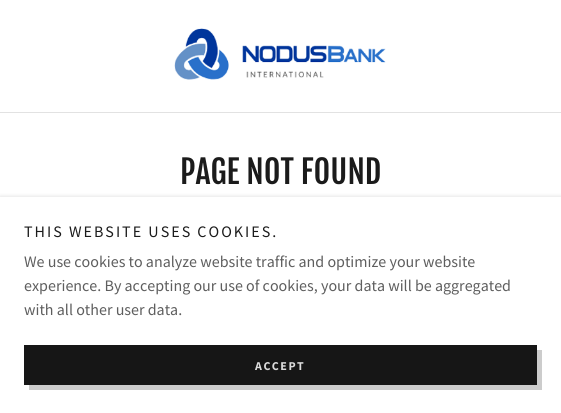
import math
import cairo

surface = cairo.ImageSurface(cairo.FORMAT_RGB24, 561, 413)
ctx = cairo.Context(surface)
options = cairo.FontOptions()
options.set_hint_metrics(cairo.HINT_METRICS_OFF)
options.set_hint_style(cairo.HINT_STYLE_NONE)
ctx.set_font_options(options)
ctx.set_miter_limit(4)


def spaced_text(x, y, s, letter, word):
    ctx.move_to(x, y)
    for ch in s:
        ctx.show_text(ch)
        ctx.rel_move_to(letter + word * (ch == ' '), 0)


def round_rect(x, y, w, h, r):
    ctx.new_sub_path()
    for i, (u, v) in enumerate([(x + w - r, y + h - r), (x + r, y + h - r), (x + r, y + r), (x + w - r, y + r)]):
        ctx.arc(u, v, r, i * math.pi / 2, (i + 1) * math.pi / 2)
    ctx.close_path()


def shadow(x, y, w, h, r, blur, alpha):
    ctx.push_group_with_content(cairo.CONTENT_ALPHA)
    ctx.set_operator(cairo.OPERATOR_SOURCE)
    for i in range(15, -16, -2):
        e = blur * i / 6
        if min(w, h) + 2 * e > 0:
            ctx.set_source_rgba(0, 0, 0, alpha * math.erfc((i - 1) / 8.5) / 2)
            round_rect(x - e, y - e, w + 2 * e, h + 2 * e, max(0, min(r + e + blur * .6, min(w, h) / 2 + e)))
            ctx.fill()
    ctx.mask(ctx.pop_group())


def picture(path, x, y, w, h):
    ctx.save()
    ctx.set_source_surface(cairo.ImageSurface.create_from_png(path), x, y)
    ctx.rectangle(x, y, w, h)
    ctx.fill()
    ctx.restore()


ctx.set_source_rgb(1, 1, 1)
ctx.paint()
picture("img1.png", 174, 28, 212, 52)
ctx.set_source_rgb(0.886, 0.886, 0.886)
ctx.rectangle(0, 112, 561, 1)
ctx.fill()
ctx.select_font_face("Fjalla One")
ctx.set_font_size(32)
ctx.set_source_rgb(0.106, 0.106, 0.106)
ctx.move_to(180, 184)
ctx.show_text("PAGE NOT FOUND")
ctx.set_source_rgb(0, 0, 0)
shadow(0, 199, 561, 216, 0, 3, 0.3)
ctx.set_source_rgb(1, 1, 1)
ctx.rectangle(0, 197, 561, 216)
ctx.fill()
ctx.select_font_face("Source Sans Pro")
ctx.set_font_size(16)
ctx.set_source_rgb(0.106, 0.106, 0.106)
spaced_text(24, 237, "THIS WEBSITE USES COOKIES.", 2, 0)
ctx.set_source_rgb(0.369, 0.369, 0.369)
ctx.move_to(24, 267)
ctx.show_text("We use cookies to analyze website traffic and optimize your website")
ctx.move_to(24, 291)
ctx.show_text("experience. By accepting our use of cookies, your data will be aggregated")
ctx.move_to(24, 315)
ctx.show_text("with all other user data.")
ctx.set_source_rgb(0.086, 0.086, 0.086)
ctx.rectangle(24, 345, 513, 40)
ctx.fill()
ctx.set_source_rgb(0.8, 0.8, 0.8)
ctx.new_path()
ctx.move_to(29, 385)
ctx.line_to(29, 390)
ctx.line_to(542, 390)
ctx.line_to(542, 350)
ctx.line_to(537, 350)
ctx.line_to(537, 385)
ctx.close_path()
ctx.fill()
ctx.select_font_face("Source Sans Pro", cairo.FONT_SLANT_NORMAL, cairo.FONT_WEIGHT_BOLD)
ctx.set_font_size(12)
ctx.set_source_rgb(0.859, 0.859, 0.859)
spaced_text(255, 370, "ACCEPT", 1.5, 0)
surface.write_to_png("page.png")
